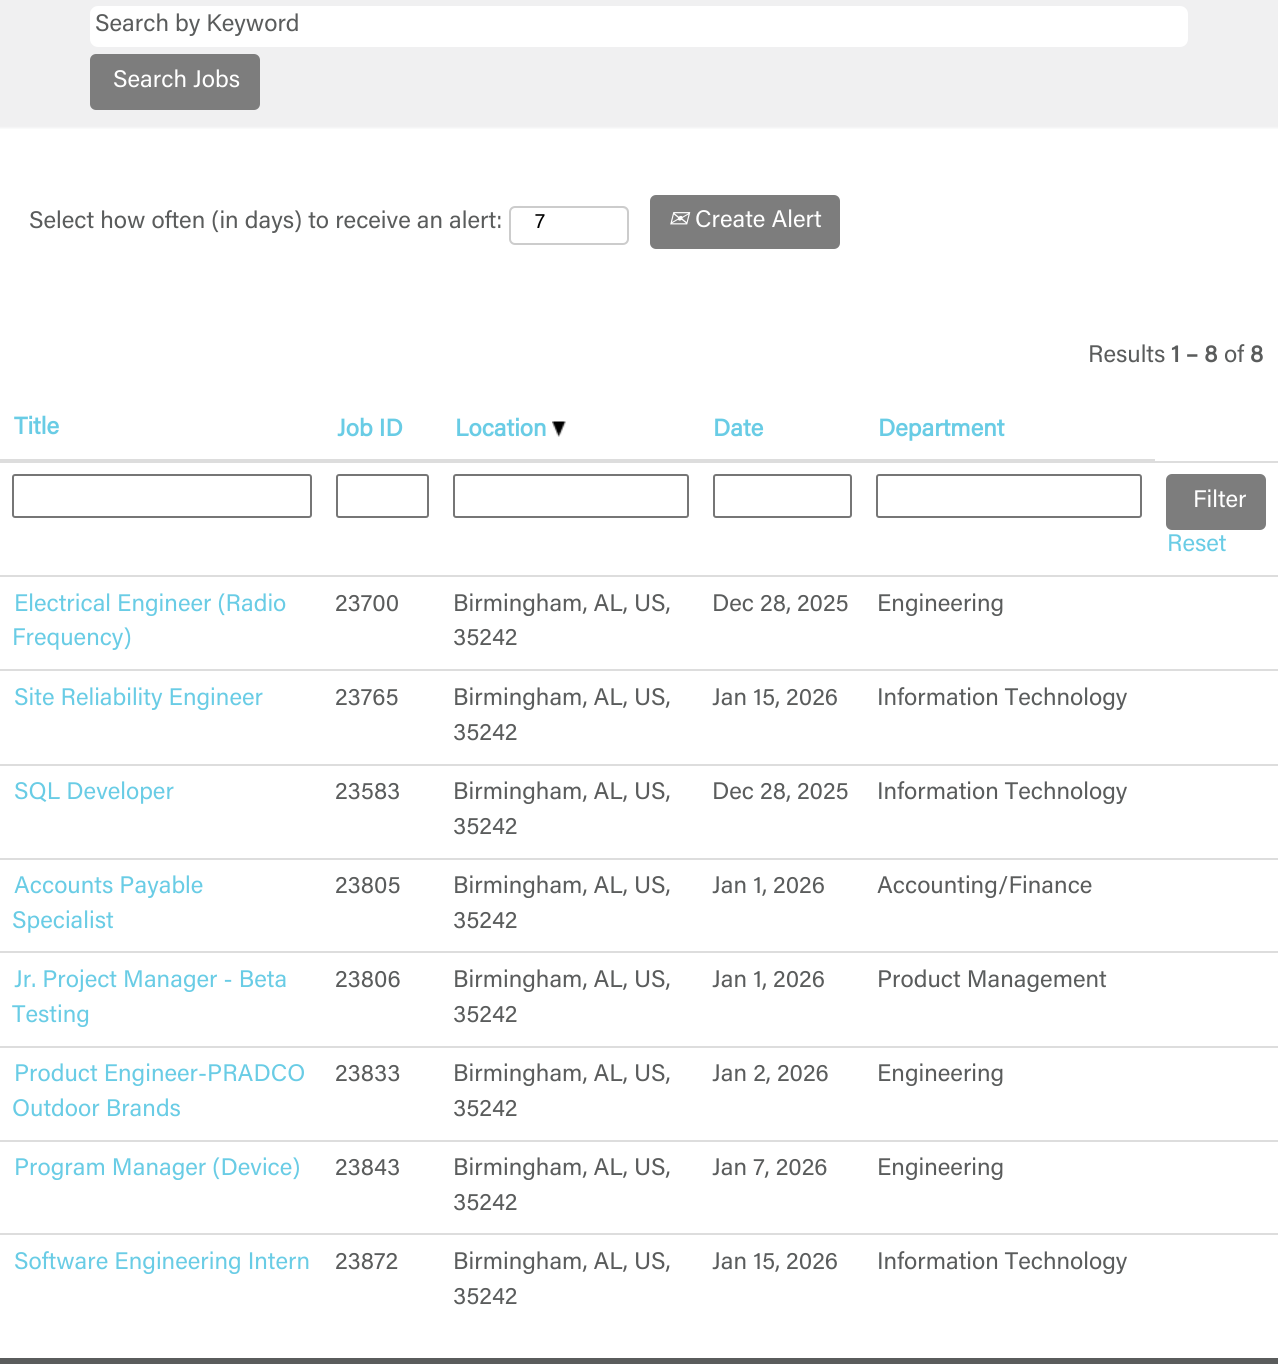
import math
import cairo

surface = cairo.ImageSurface(cairo.FORMAT_RGB24, 1278, 1364)
ctx = cairo.Context(surface)
options = cairo.FontOptions()
options.set_hint_metrics(cairo.HINT_METRICS_OFF)
options.set_hint_style(cairo.HINT_STYLE_NONE)
ctx.set_font_options(options)
ctx.set_miter_limit(4)


def round_rect(x, y, w, h, r):
    ctx.new_sub_path()
    for i, (u, v) in enumerate([(x + w - r, y + h - r), (x + r, y + h - r), (x + r, y + r), (x + w - r, y + r)]):
        ctx.arc(u, v, r, i * math.pi / 2, (i + 1) * math.pi / 2)
    ctx.close_path()


def picture(path, x, y, w, h):
    ctx.save()
    ctx.set_source_surface(cairo.ImageSurface.create_from_png(path), x, y)
    ctx.rectangle(x, y, w, h)
    ctx.fill()
    ctx.restore()


ctx.set_source_rgb(1, 1, 1)
ctx.paint()
picture("img1.png", 0, 0, 1278, 129)
ctx.set_source_rgb(1, 1, 1)
round_rect(90, 6, 1098, 41, 8)
ctx.fill()
ctx.select_font_face("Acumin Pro")
ctx.set_font_size(24)
ctx.set_source_rgb(0.353, 0.361, 0.361)
ctx.move_to(95, 31)
ctx.show_text("Search by Keyword")
ctx.set_source_rgb(0.49, 0.49, 0.49)
round_rect(90, 54, 170, 56, 6)
ctx.fill()
ctx.set_source_rgb(1, 1, 1)
ctx.move_to(113, 87)
ctx.show_text("Search Jobs")
ctx.set_source_rgb(0.353, 0.361, 0.361)
ctx.move_to(29, 228)
ctx.show_text("Select how often (in days) to receive an alert:")
ctx.set_source_rgb(0.925, 0.925, 0.925)
ctx.new_path()
ctx.move_to(514, 208)
ctx.line_to(622, 208)
ctx.curve_to(625, 208, 627, 211, 627, 213)
ctx.curve_to(627, 202, 609, 207, 604, 207)
ctx.line_to(533, 207)
ctx.curve_to(528, 207, 510, 202, 510, 213)
ctx.curve_to(510, 211, 512, 208, 514, 208)
ctx.close_path()
ctx.fill()
round_rect(510, 207, 118, 37, 5)
ctx.set_source_rgb(0.8, 0.8, 0.8)
ctx.stroke()
ctx.set_font_size(21)
ctx.set_source_rgb(0, 0, 0)
ctx.move_to(535, 228)
ctx.show_text("7")
ctx.set_source_rgb(0.49, 0.49, 0.49)
round_rect(650, 195, 190, 54, 6)
ctx.fill()
ctx.select_font_face("DejaVu Sans", cairo.FONT_SLANT_ITALIC)
ctx.set_font_size(24)
ctx.set_source_rgb(1, 1, 1)
ctx.move_to(668, 227)
ctx.show_text("✉")
ctx.select_font_face("Acumin Pro")
ctx.move_to(695, 227)
ctx.show_text("Create Alert")
ctx.set_source_rgb(0.353, 0.361, 0.361)
ctx.move_to(1088, 362)
ctx.show_text("Results")
ctx.select_font_face("Acumin Pro", cairo.FONT_SLANT_NORMAL, cairo.FONT_WEIGHT_BOLD)
ctx.move_to(1171, 362)
ctx.show_text("1 – 8")
ctx.select_font_face("Acumin Pro")
ctx.move_to(1224, 362)
ctx.show_text("of")
ctx.select_font_face("Acumin Pro", cairo.FONT_SLANT_NORMAL, cairo.FONT_WEIGHT_BOLD)
ctx.move_to(1250, 362)
ctx.show_text("8")
ctx.set_source_rgb(0.412, 0.8, 0.898)
ctx.move_to(14, 434)
ctx.show_text("Title")
ctx.move_to(337, 436)
ctx.show_text("Job ID")
ctx.move_to(455, 436)
ctx.show_text("Location")
picture("img2.png", 552, 421, 14, 16)
ctx.move_to(713, 436)
ctx.show_text("Date")
ctx.set_source_rgb(0.867, 0.867, 0.867)
ctx.rectangle(1154, 461, 124, 2)
ctx.fill()
ctx.rectangle(0, 459, 1155, 3)
ctx.fill()
ctx.set_source_rgb(0.412, 0.8, 0.898)
ctx.move_to(878, 436)
ctx.show_text("Department")
ctx.set_source_rgb(0.867, 0.867, 0.867)
ctx.rectangle(0, 462, 1155, 1)
ctx.fill()
round_rect(877, 475, 264, 42, 2)
ctx.set_source_rgb(0.463, 0.463, 0.463)
ctx.stroke()
round_rect(13, 475, 298, 42, 2)
ctx.stroke()
round_rect(337, 475, 91, 42, 2)
ctx.stroke()
round_rect(454, 475, 234, 42, 2)
ctx.stroke()
round_rect(714, 475, 137, 42, 2)
ctx.stroke()
ctx.set_source_rgb(0.49, 0.49, 0.49)
round_rect(1166, 474, 100, 56, 6)
ctx.fill()
ctx.select_font_face("Acumin Pro")
ctx.set_source_rgb(1, 1, 1)
ctx.move_to(1193, 507)
ctx.show_text("Filter")
ctx.set_source_rgb(0.412, 0.8, 0.898)
ctx.move_to(1167, 551)
ctx.show_text("Reset")
ctx.set_source_rgb(0.867, 0.867, 0.867)
ctx.rectangle(0, 575, 1278, 2)
ctx.fill()
ctx.set_source_rgb(0.412, 0.8, 0.898)
ctx.move_to(14, 611)
ctx.show_text("Electrical Engineer (Radio")
ctx.move_to(12, 645)
ctx.show_text("Frequency)")
ctx.set_source_rgb(0.353, 0.361, 0.361)
ctx.move_to(335, 611)
ctx.show_text("23700")
ctx.move_to(453, 611)
ctx.show_text("Birmingham, AL, US,")
ctx.move_to(453, 645)
ctx.show_text("35242")
ctx.move_to(712, 611)
ctx.show_text("Dec 28, 2025")
ctx.move_to(877, 611)
ctx.show_text("Engineering")
ctx.set_source_rgb(0.867, 0.867, 0.867)
ctx.rectangle(0, 669, 1278, 2)
ctx.fill()
ctx.set_source_rgb(0.412, 0.8, 0.898)
ctx.move_to(14, 705)
ctx.show_text("Site Reliability Engineer")
ctx.set_source_rgb(0.353, 0.361, 0.361)
ctx.move_to(335, 705)
ctx.show_text("23765")
ctx.move_to(453, 705)
ctx.show_text("Birmingham, AL, US,")
ctx.move_to(453, 740)
ctx.show_text("35242")
ctx.move_to(712, 705)
ctx.show_text("Jan 15, 2026")
ctx.move_to(877, 705)
ctx.show_text("Information Technology")
ctx.set_source_rgb(0.867, 0.867, 0.867)
ctx.rectangle(0, 764, 1278, 2)
ctx.fill()
ctx.set_source_rgb(0.412, 0.8, 0.898)
ctx.move_to(14, 799)
ctx.show_text("SQL Developer")
ctx.set_source_rgb(0.353, 0.361, 0.361)
ctx.move_to(335, 799)
ctx.show_text("23583")
ctx.move_to(453, 799)
ctx.show_text("Birmingham, AL, US,")
ctx.move_to(453, 834)
ctx.show_text("35242")
ctx.move_to(712, 799)
ctx.show_text("Dec 28, 2025")
ctx.move_to(877, 799)
ctx.show_text("Information Technology")
ctx.set_source_rgb(0.867, 0.867, 0.867)
ctx.rectangle(0, 858, 1278, 2)
ctx.fill()
ctx.set_source_rgb(0.412, 0.8, 0.898)
ctx.move_to(14, 893)
ctx.show_text("Accounts Payable")
ctx.move_to(12, 928)
ctx.show_text("Specialist")
ctx.set_source_rgb(0.353, 0.361, 0.361)
ctx.move_to(335, 893)
ctx.show_text("23805")
ctx.move_to(453, 893)
ctx.show_text("Birmingham, AL, US,")
ctx.move_to(453, 928)
ctx.show_text("35242")
ctx.move_to(712, 893)
ctx.show_text("Jan 1, 2026")
ctx.move_to(877, 893)
ctx.show_text("Accounting/Finance")
ctx.set_source_rgb(0.867, 0.867, 0.867)
ctx.rectangle(0, 951, 1278, 2)
ctx.fill()
ctx.set_source_rgb(0.412, 0.8, 0.898)
ctx.move_to(14, 987)
ctx.show_text("Jr. Project Manager - Beta")
ctx.move_to(12, 1022)
ctx.show_text("Testing")
ctx.set_source_rgb(0.353, 0.361, 0.361)
ctx.move_to(335, 987)
ctx.show_text("23806")
ctx.move_to(453, 987)
ctx.show_text("Birmingham, AL, US,")
ctx.move_to(453, 1022)
ctx.show_text("35242")
ctx.move_to(712, 987)
ctx.show_text("Jan 1, 2026")
ctx.move_to(877, 987)
ctx.show_text("Product Management")
ctx.set_source_rgb(0.867, 0.867, 0.867)
ctx.rectangle(0, 1046, 1278, 2)
ctx.fill()
ctx.set_source_rgb(0.412, 0.8, 0.898)
ctx.move_to(14, 1081)
ctx.show_text("Product Engineer-PRADCO")
ctx.move_to(12, 1116)
ctx.show_text("Outdoor Brands")
ctx.set_source_rgb(0.353, 0.361, 0.361)
ctx.move_to(335, 1081)
ctx.show_text("23833")
ctx.move_to(453, 1081)
ctx.show_text("Birmingham, AL, US,")
ctx.move_to(453, 1116)
ctx.show_text("35242")
ctx.move_to(712, 1081)
ctx.show_text("Jan 2, 2026")
ctx.move_to(877, 1081)
ctx.show_text("Engineering")
ctx.set_source_rgb(0.867, 0.867, 0.867)
ctx.rectangle(0, 1140, 1278, 2)
ctx.fill()
ctx.set_source_rgb(0.412, 0.8, 0.898)
ctx.move_to(14, 1175)
ctx.show_text("Program Manager (Device)")
ctx.set_source_rgb(0.353, 0.361, 0.361)
ctx.move_to(335, 1175)
ctx.show_text("23843")
ctx.move_to(453, 1175)
ctx.show_text("Birmingham, AL, US,")
ctx.move_to(453, 1210)
ctx.show_text("35242")
ctx.move_to(712, 1175)
ctx.show_text("Jan 7, 2026")
ctx.move_to(877, 1175)
ctx.show_text("Engineering")
ctx.set_source_rgb(0.867, 0.867, 0.867)
ctx.rectangle(0, 1233, 1278, 2)
ctx.fill()
ctx.set_source_rgb(0.412, 0.8, 0.898)
ctx.move_to(14, 1269)
ctx.show_text("Software Engineering Intern")
ctx.set_source_rgb(0.353, 0.361, 0.361)
ctx.move_to(335, 1269)
ctx.show_text("23872")
ctx.move_to(453, 1269)
ctx.show_text("Birmingham, AL, US,")
ctx.move_to(453, 1304)
ctx.show_text("35242")
ctx.move_to(712, 1269)
ctx.show_text("Jan 15, 2026")
ctx.move_to(877, 1269)
ctx.show_text("Information Technology")
ctx.rectangle(0, 1358, 1278, 6)
ctx.fill()
surface.write_to_png("page.png")
